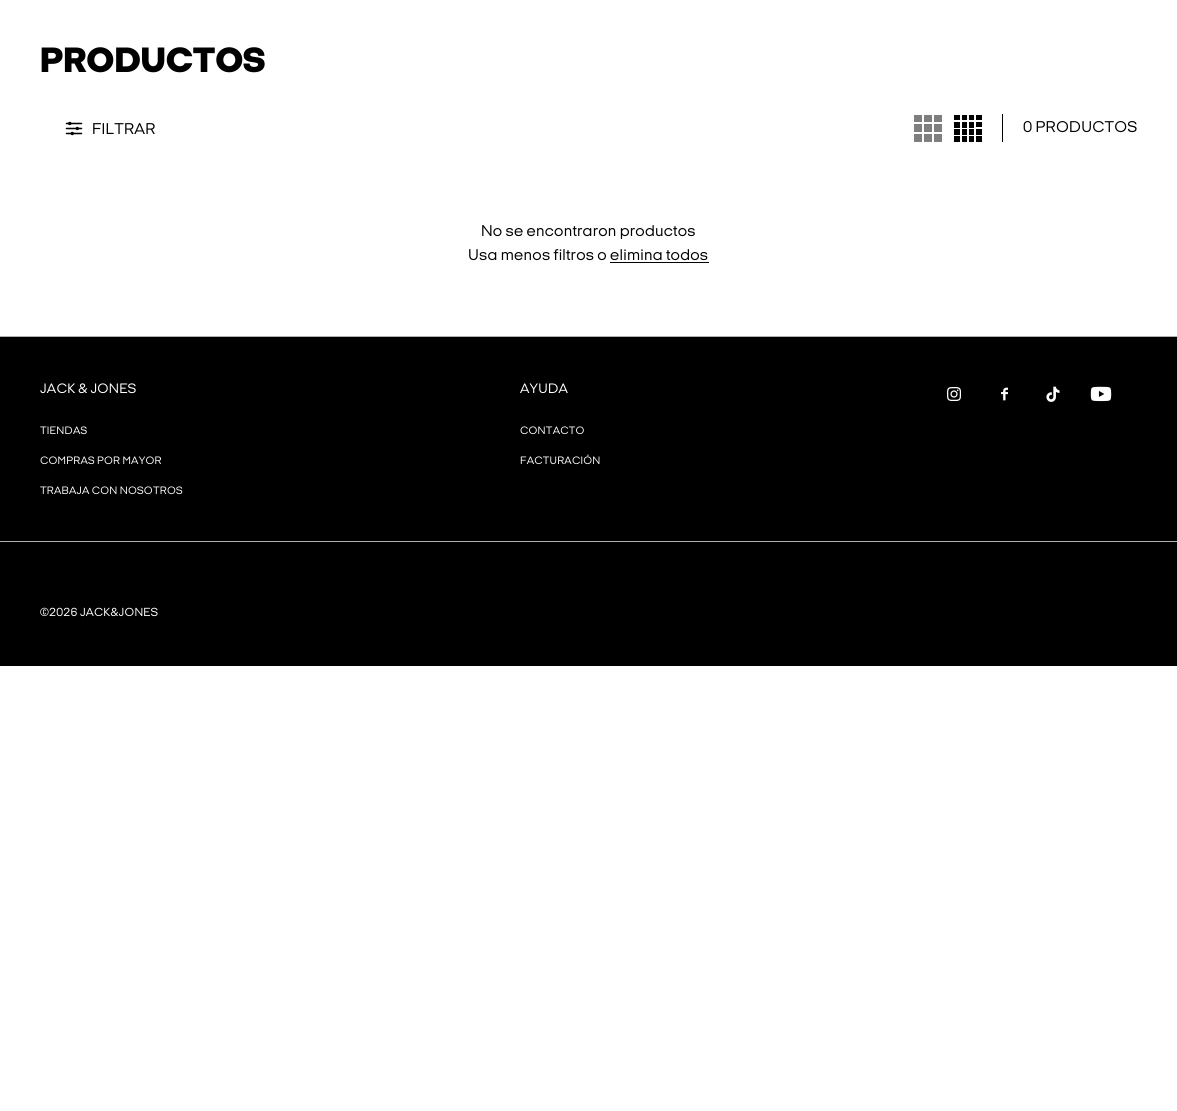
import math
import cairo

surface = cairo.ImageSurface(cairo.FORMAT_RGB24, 1177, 1111)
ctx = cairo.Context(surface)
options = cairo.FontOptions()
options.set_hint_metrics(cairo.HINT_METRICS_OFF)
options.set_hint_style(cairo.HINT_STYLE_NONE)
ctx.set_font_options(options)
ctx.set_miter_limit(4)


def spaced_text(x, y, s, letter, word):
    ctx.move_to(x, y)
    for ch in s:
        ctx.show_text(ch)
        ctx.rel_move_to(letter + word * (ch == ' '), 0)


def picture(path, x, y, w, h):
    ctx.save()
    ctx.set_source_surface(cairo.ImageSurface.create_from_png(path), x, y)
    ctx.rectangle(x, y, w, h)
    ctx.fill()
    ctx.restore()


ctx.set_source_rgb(1, 1, 1)
ctx.paint()
ctx.select_font_face("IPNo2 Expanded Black")
ctx.set_font_size(36)
ctx.set_source_rgb(0, 0, 0)
spaced_text(40, 72, "PRODUCTOS", 0.25, 0)
picture("img1.png", 65, 121, 18, 15)
ctx.select_font_face("IPNo2 Expanded")
ctx.set_font_size(16)
spaced_text(92, 134, "FILTRAR", 0.25, 0)
ctx.rectangle(1002, 114, 1, 28)
ctx.fill()
picture("img2.png", 914, 115, 28, 27)
picture("img3.png", 954, 115, 28, 27)
spaced_text(1023, 132, "0 PRODUCTOS", 0.25, 0)
spaced_text(481, 236, "No se encontraron productos", 0.25, 0)
spaced_text(468, 260, "Usa menos filtros o elimina todos", 0.25, 0)
ctx.rectangle(610, 262, 99, 1)
ctx.fill()
ctx.rectangle(0, 337, 1177, 329)
ctx.fill()
ctx.set_source_rgb(0.69, 0.69, 0.69)
ctx.rectangle(0, 336, 1177, 1)
ctx.fill()
ctx.rectangle(0, 541, 1177, 1)
ctx.fill()
ctx.set_font_size(14)
ctx.set_source_rgb(1, 1, 1)
spaced_text(40, 393, "JACK & JONES", 0.25, 0)
ctx.set_font_size(11)
spaced_text(40, 434, "TIENDAS", 0.25, 0)
spaced_text(40, 464, "COMPRAS POR MAYOR", 0.25, 0)
spaced_text(40, 494, "TRABAJA CON NOSOTROS", 0.25, 0)
ctx.set_font_size(14)
spaced_text(520, 393, "AYUDA", 0.25, 0)
ctx.set_font_size(11)
spaced_text(520, 434, "CONTACTO", 0.25, 0)
spaced_text(520, 464, "FACTURACIÓN", 0.25, 0)
picture("img4.png", 947, 387, 14, 14)
picture("img5.png", 1001, 387, 7, 14)
picture("img6.png", 1046, 386, 14, 16)
picture("img7.png", 1090, 386, 22, 16)
ctx.set_font_size(12)
spaced_text(40, 616, "©2026 JACK&JONES", 0.25, 0)
surface.write_to_png("page.png")
